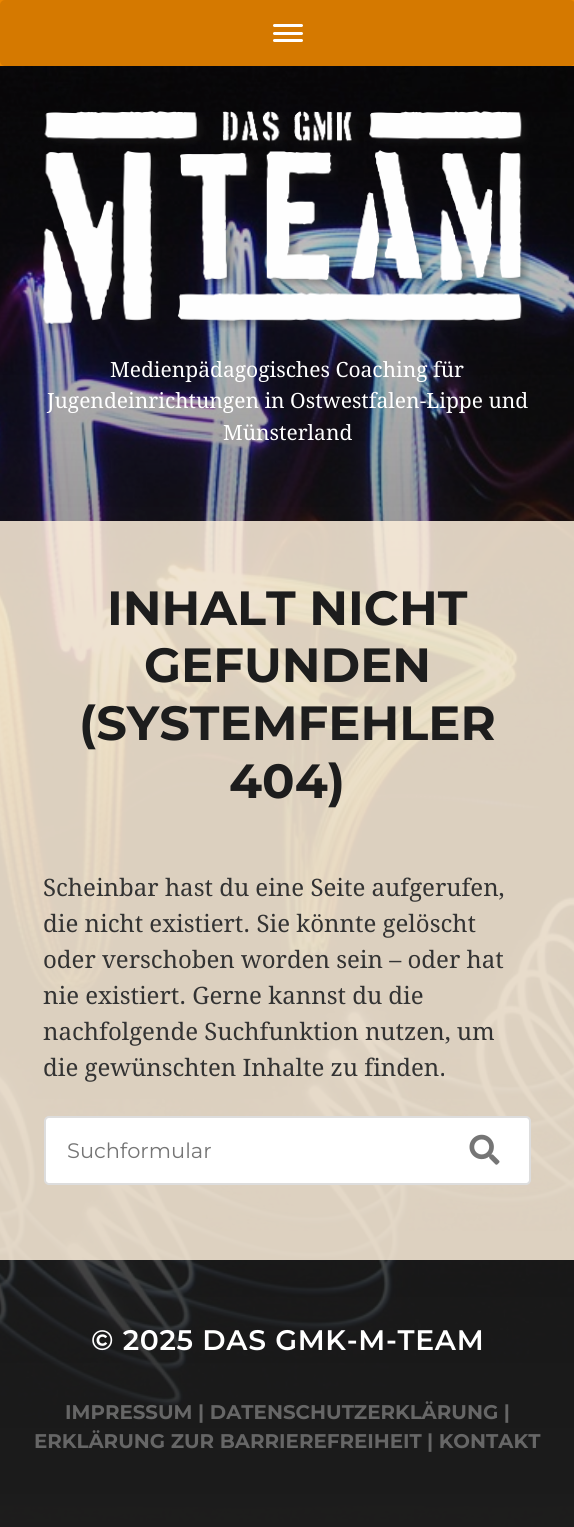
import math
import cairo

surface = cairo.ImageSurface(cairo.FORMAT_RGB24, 574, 1527)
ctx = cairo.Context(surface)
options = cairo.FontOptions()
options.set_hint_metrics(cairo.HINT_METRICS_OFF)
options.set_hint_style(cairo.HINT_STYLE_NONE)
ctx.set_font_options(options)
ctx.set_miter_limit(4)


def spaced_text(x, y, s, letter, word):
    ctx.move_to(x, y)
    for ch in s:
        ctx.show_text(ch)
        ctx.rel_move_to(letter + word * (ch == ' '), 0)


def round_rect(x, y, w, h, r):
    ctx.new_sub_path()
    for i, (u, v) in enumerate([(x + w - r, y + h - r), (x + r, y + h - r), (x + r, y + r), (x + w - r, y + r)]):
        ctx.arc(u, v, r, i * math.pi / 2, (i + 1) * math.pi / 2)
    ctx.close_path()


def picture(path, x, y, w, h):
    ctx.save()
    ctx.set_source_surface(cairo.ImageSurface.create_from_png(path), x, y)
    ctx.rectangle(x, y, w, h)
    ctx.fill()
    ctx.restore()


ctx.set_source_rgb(0.929, 0.525, 0)
ctx.paint()
ctx.set_source_rgb(0.835, 0.475, 0)
round_rect(0, 0, 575, 66, 5)
ctx.fill()
ctx.set_source_rgb(1, 1, 1)
round_rect(273, 24, 30, 3, 1.5)
ctx.fill()
round_rect(273, 32, 30, 3, 1.5)
ctx.fill()
round_rect(273, 39, 30, 3, 1.5)
ctx.fill()
picture("img1.png", 0, 66, 574, 1461)
picture("img2.png", 43, 111, 487, 220)
ctx.select_font_face("Droid Serif")
ctx.set_font_size(21)
ctx.move_to(110, 377)
ctx.show_text("Medienpädagogisches Coaching für")
ctx.move_to(47, 408)
ctx.show_text("Jugendeinrichtungen in Ostwestfalen-Lippe und")
ctx.move_to(223, 440)
ctx.show_text("Münsterland")
ctx.set_source_rgba(1, 0.945, 0.867, 0.85)
ctx.rectangle(0, 521, 574, 739)
ctx.fill()
ctx.select_font_face("Montserrat Thin")
ctx.set_font_size(48)
ctx.set_source_rgb(0.114, 0.114, 0.114)
ctx.move_to(107, 625)
ctx.show_text("INHALT NICHT")
ctx.move_to(144, 682)
ctx.show_text("GEFUNDEN")
ctx.move_to(79, 740)
ctx.show_text("(SYSTEMFEHLER")
ctx.move_to(229, 798)
ctx.show_text("404)")
ctx.select_font_face("Droid Serif")
ctx.set_font_size(24)
ctx.set_source_rgb(0.2, 0.2, 0.2)
ctx.move_to(43, 896)
ctx.show_text("Scheinbar hast du eine Seite aufgerufen,")
ctx.move_to(43, 932)
ctx.show_text("die nicht existiert. Sie könnte gelöscht")
ctx.move_to(43, 968)
ctx.show_text("oder verschoben worden sein – oder hat")
ctx.move_to(43, 1004)
ctx.show_text("nie existiert. Gerne kannst du die")
ctx.move_to(43, 1040)
ctx.show_text("nachfolgende Suchfunktion nutzen, um")
ctx.move_to(43, 1076)
ctx.show_text("die gewünschten Inhalte zu finden.")
ctx.set_source_rgb(1, 1, 1)
round_rect(45, 1117, 485, 67, 4)
ctx.fill_preserve()
ctx.set_source_rgb(0.867, 0.867, 0.867)
ctx.stroke()
ctx.select_font_face("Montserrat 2 Thin")
ctx.set_font_size(21)
ctx.set_source_rgb(0.459, 0.459, 0.459)
ctx.move_to(67, 1158)
ctx.show_text("Suchformular")
picture("img3.png", 469, 1134, 31, 31)
ctx.select_font_face("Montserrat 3 Thin")
ctx.set_font_size(28.25)
ctx.set_source_rgb(1, 1, 1)
spaced_text(91, 1350, "© 2025 DAS GMK-M-TEAM", 0.7, 0)
ctx.select_font_face("Montserrat Thin")
ctx.set_font_size(19.8)
ctx.set_source_rgb(0.4, 0.4, 0.4)
ctx.move_to(65, 1419)
ctx.show_text("IMPRESSUM | DATENSCHUTZERKLÄRUNG |")
ctx.move_to(34, 1448)
ctx.show_text("ERKLÄRUNG ZUR BARRIEREFREIHEIT")
ctx.move_to(427, 1448)
ctx.show_text("| KONTAKT")
surface.write_to_png("page.png")
